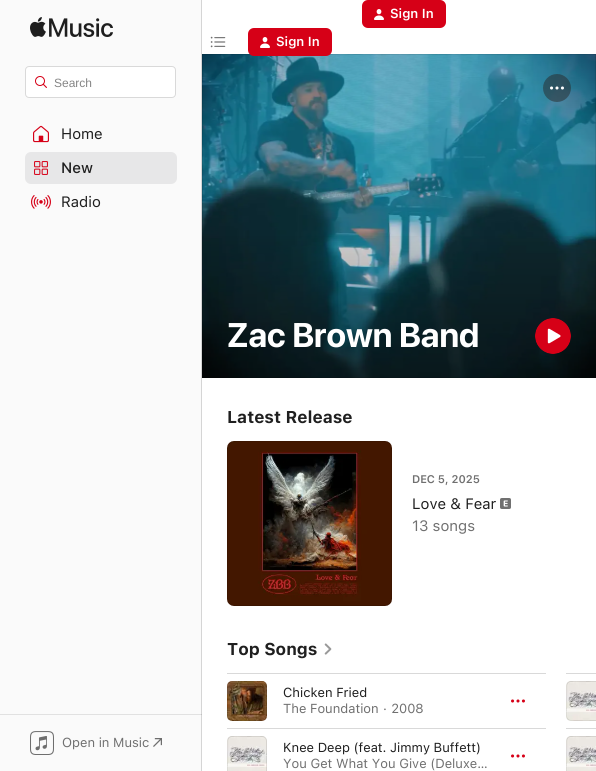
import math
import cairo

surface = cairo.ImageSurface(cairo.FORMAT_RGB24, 596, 771)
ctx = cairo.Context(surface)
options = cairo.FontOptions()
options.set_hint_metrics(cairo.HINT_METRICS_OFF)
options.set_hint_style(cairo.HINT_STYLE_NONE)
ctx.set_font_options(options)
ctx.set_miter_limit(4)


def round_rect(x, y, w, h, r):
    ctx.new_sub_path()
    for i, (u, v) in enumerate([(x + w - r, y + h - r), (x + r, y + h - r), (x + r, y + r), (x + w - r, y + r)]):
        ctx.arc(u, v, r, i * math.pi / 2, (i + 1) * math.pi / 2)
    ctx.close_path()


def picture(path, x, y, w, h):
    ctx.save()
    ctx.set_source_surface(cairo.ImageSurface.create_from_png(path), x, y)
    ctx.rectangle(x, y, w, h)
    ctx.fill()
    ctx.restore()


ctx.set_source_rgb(1, 1, 1)
ctx.paint()
ctx.set_source_rgb(0.839, 0, 0.09)
round_rect(362, 0, 84, 28, 6)
ctx.fill()
picture("img1.png", 374, 9, 10, 11)
ctx.select_font_face("SF SemiBold")
ctx.set_font_size(13)
ctx.set_source_rgb(1, 1, 1)
ctx.move_to(390, 18)
ctx.show_text("Sign In")
picture("img2.png", 210, 36, 16, 12)
picture("img10.png", 202, 54, 394, 324)
ctx.rectangle(202.5, 54.5, 393, 323)
ctx.set_source_rgba(0, 0, 0, 0.1)
ctx.set_line_width(1)
ctx.stroke()
ctx.set_source_rgb(0.839, 0, 0.09)
round_rect(248, 28, 84, 28, 6)
ctx.fill()
picture("img1.png", 260, 37, 10, 11)
ctx.set_source_rgb(1, 1, 1)
ctx.move_to(276, 46)
ctx.show_text("Sign In")
ctx.set_source_rgb(0.98, 0.98, 0.98)
ctx.rectangle(0, 0, 201, 771)
ctx.fill()
ctx.set_source_rgb(0.882, 0.882, 0.882)
ctx.rectangle(0, 714, 202, 1)
ctx.fill()
ctx.set_source_rgb(0.835, 0.835, 0.835)
ctx.rectangle(201, 0, 1, 771)
ctx.fill()
ctx.set_source_rgb(0.753, 0.753, 0.753)
ctx.rectangle(201, 714, 1, 1)
ctx.fill()
picture("img3.png", 30, 17, 83, 20)
ctx.set_source_rgb(1, 1, 1)
round_rect(25.5, 66.5, 150, 31, 3.5)
ctx.fill_preserve()
ctx.set_source_rgb(0.851, 0.851, 0.851)
ctx.stroke()
picture("img4.png", 35, 76, 12, 12)
ctx.select_font_face("Liberation Sans")
ctx.set_font_size(12)
ctx.set_source_rgb(0.522, 0.522, 0.522)
ctx.move_to(54, 87)
ctx.show_text("Search")
picture("img5.png", 33, 125, 16, 18)
ctx.select_font_face("SF")
ctx.set_font_size(15)
ctx.set_source_rgb(0.122, 0.122, 0.122)
ctx.move_to(61, 139)
ctx.show_text("Home")
ctx.set_source_rgb(0.906, 0.906, 0.91)
round_rect(25, 152, 152, 32, 6)
ctx.fill()
picture("img6.png", 34, 161, 14, 14)
ctx.select_font_face("SF Medium")
ctx.set_source_rgb(0.122, 0.122, 0.122)
ctx.move_to(61, 173)
ctx.show_text("New")
picture("img7.png", 31, 195, 20, 14)
ctx.select_font_face("SF")
ctx.move_to(61, 207)
ctx.show_text("Radio")
picture("img8.png", 30, 731, 24, 24)
ctx.set_font_size(13)
ctx.set_source_rgb(0.439, 0.439, 0.439)
ctx.move_to(62, 747)
ctx.show_text("Open in Music")
picture("img9.png", 153, 738, 9, 9)
gradient = cairo.LinearGradient(399, 378, 399, 228)
gradient.add_color_stop_rgba(0, 0, 0, 0, 0.36)
gradient.add_color_stop_rgba(0.36, 0, 0, 0, 0.25)
gradient.add_color_stop_rgba(1, 0, 0, 0, 0)
ctx.set_source(gradient)
ctx.rectangle(202, 236, 394, 142)
ctx.fill()
ctx.set_source_rgba(0.157, 0.157, 0.157, 0.5)
ctx.arc(557, 88, 14, 0, 2 * math.pi)
ctx.fill()
picture("img11.png", 550, 86, 14, 4)
ctx.select_font_face("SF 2", cairo.FONT_SLANT_NORMAL, cairo.FONT_WEIGHT_BOLD)
ctx.set_font_size(34)
ctx.set_source_rgb(1, 1, 1)
ctx.move_to(227, 347)
ctx.show_text("Zac Brown Band")
picture("img12.png", 535, 318, 36, 36)
ctx.select_font_face("SF", cairo.FONT_SLANT_NORMAL, cairo.FONT_WEIGHT_BOLD)
ctx.set_font_size(17)
ctx.set_source_rgb(0.122, 0.122, 0.122)
ctx.move_to(227, 423)
ctx.show_text("Latest Release")
picture("img13.png", 227, 441, 165, 165)
round_rect(227.5, 441.5, 164, 164, 6.5)
ctx.set_source_rgba(0, 0, 0, 0.1)
ctx.stroke()
ctx.select_font_face("SF SemiBold")
ctx.set_font_size(11)
ctx.set_source_rgb(0.439, 0.439, 0.439)
ctx.move_to(412, 483)
ctx.show_text("DEC 5, 2025")
ctx.select_font_face("SF")
ctx.set_font_size(15)
ctx.set_source_rgb(0.122, 0.122, 0.122)
ctx.move_to(412, 509)
ctx.show_text("Love & Fear")
picture("img14.png", 500, 498, 11, 11)
ctx.set_source_rgb(0.439, 0.439, 0.439)
ctx.move_to(412, 531)
ctx.show_text("13 songs")
ctx.select_font_face("SF", cairo.FONT_SLANT_NORMAL, cairo.FONT_WEIGHT_BOLD)
ctx.set_font_size(17)
ctx.set_source_rgb(0.122, 0.122, 0.122)
ctx.move_to(227, 655)
ctx.show_text("Top Songs")
picture("img15.png", 324, 643, 8, 12)
ctx.set_source_rgb(0.851, 0.851, 0.851)
ctx.rectangle(227, 673, 319, 1)
ctx.fill()
picture("img16.png", 227, 681, 40, 40)
round_rect(227.5, 681.5, 39, 39, 4.5)
ctx.set_source_rgba(0, 0, 0, 0.1)
ctx.stroke()
ctx.select_font_face("SF")
ctx.set_font_size(13)
ctx.set_source_rgb(0.122, 0.122, 0.122)
ctx.move_to(283, 697)
ctx.show_text("Chicken Fried")
ctx.set_source_rgb(0.439, 0.439, 0.439)
ctx.move_to(283, 713)
ctx.show_text("The Foundation · 2008")
picture("img17.png", 511, 699, 14, 4)
ctx.set_source_rgb(0.851, 0.851, 0.851)
ctx.rectangle(566, 673, 30, 1)
ctx.fill()
picture("img18.png", 566, 681, 30, 40)
round_rect(566.5, 681.5, 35, 39, 4.5)
ctx.set_source_rgba(0, 0, 0, 0.1)
ctx.stroke()
ctx.set_source_rgb(0.851, 0.851, 0.851)
ctx.rectangle(227, 728, 319, 1)
ctx.fill()
picture("img19.png", 227, 736, 40, 35)
round_rect(227.5, 736.5, 39, 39, 4.5)
ctx.set_source_rgba(0, 0, 0, 0.1)
ctx.stroke()
ctx.set_source_rgb(0.122, 0.122, 0.122)
ctx.move_to(283, 752)
ctx.show_text("Knee Deep (feat. Jimmy Buffett)")
ctx.set_source_rgb(0.439, 0.439, 0.439)
ctx.move_to(283, 768)
ctx.show_text("You Get What You Give (Deluxe…")
picture("img17.png", 511, 754, 14, 4)
ctx.set_source_rgb(0.851, 0.851, 0.851)
ctx.rectangle(566, 728, 30, 1)
ctx.fill()
picture("img20.png", 566, 736, 30, 35)
round_rect(566.5, 736.5, 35, 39, 4.5)
ctx.set_source_rgba(0, 0, 0, 0.1)
ctx.stroke()
surface.write_to_png("page.png")
